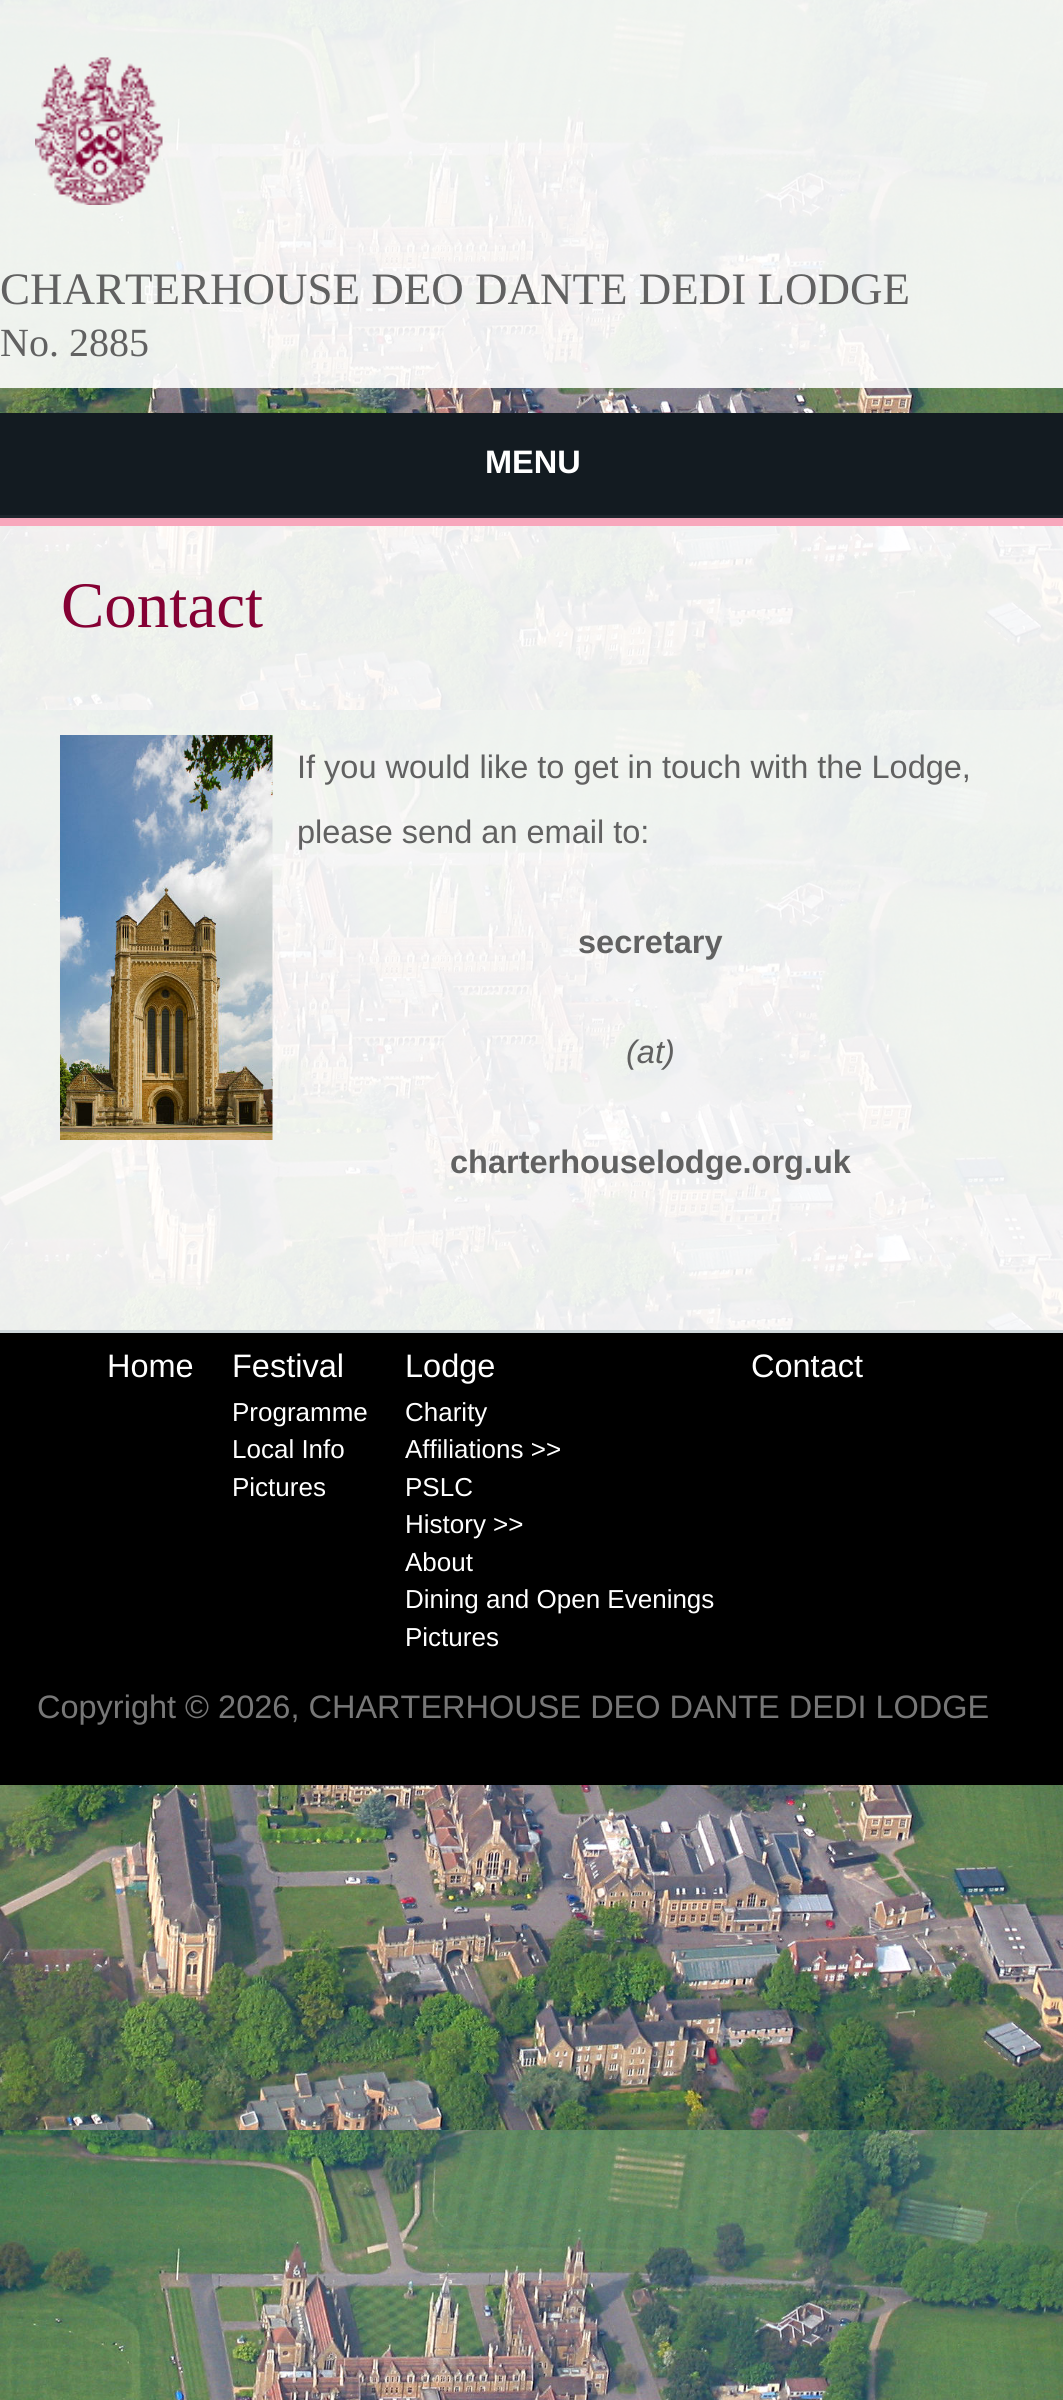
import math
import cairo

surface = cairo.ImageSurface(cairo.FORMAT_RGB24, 1063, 2400)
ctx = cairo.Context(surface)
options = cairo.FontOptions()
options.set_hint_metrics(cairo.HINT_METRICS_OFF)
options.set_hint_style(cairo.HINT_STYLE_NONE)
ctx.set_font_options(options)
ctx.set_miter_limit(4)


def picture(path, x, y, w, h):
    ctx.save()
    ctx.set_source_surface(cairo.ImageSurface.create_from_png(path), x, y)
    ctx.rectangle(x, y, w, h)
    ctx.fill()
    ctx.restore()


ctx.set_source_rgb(1, 1, 1)
ctx.paint()
picture("img1.png", 0, 0, 1063, 2400)
ctx.set_source_rgba(1, 1, 1, 0.9)
ctx.rectangle(0, 0, 1063, 388)
ctx.fill()
picture("img2.png", 35, 57, 128, 148)
ctx.select_font_face("Liberation Serif")
ctx.set_font_size(45)
ctx.set_source_rgb(0.38, 0.38, 0.38)
ctx.move_to(0, 304)
ctx.show_text("CHARTERHOUSE DEO DANTE DEDI LODGE")
ctx.set_font_size(40)
ctx.move_to(0, 356)
ctx.show_text("No. 2885")
ctx.set_source_rgb(0.969, 0.655, 0.737)
ctx.rectangle(0, 518, 1063, 8)
ctx.fill()
ctx.set_source_rgb(0.078, 0.106, 0.129)
ctx.rectangle(0, 413, 1063, 102)
ctx.fill()
ctx.set_source_rgb(0.118, 0.149, 0.176)
ctx.rectangle(0, 515, 1063, 3)
ctx.fill()
ctx.select_font_face("Liberation Sans", cairo.FONT_SLANT_NORMAL, cairo.FONT_WEIGHT_BOLD)
ctx.set_font_size(32.5)
ctx.set_source_rgb(1, 1, 1)
ctx.move_to(485, 473)
ctx.show_text("MENU")
ctx.set_source_rgba(1, 1, 1, 0.9)
ctx.rectangle(0, 526, 1063, 804)
ctx.fill()
ctx.select_font_face("Liberation Serif")
ctx.set_font_size(65)
ctx.set_source_rgb(0.522, 0.004, 0.204)
ctx.move_to(61, 627)
ctx.show_text("Contact")
picture("img3.png", 60, 735, 213, 405)
ctx.select_font_face("Liberation Sans")
ctx.set_font_size(32.5)
ctx.set_source_rgb(0.38, 0.38, 0.38)
ctx.move_to(297, 778)
ctx.show_text("If you would like to get in touch with the Lodge,")
ctx.move_to(297, 843)
ctx.show_text("please send an email to:")
ctx.select_font_face("Liberation Sans", cairo.FONT_SLANT_NORMAL, cairo.FONT_WEIGHT_BOLD)
ctx.move_to(578, 953)
ctx.show_text("secretary")
ctx.select_font_face("Liberation Sans", cairo.FONT_SLANT_ITALIC)
ctx.move_to(626, 1063)
ctx.show_text("(at)")
ctx.select_font_face("Liberation Sans", cairo.FONT_SLANT_NORMAL, cairo.FONT_WEIGHT_BOLD)
ctx.move_to(450, 1173)
ctx.show_text("charterhouselodge.org.uk")
ctx.set_source_rgb(0.812, 0.843, 0.859)
ctx.rectangle(0, 1330, 1063, 3)
ctx.fill()
ctx.set_source_rgb(0, 0, 0)
ctx.rectangle(0, 1333, 1063, 452)
ctx.fill()
ctx.select_font_face("Liberation Sans")
ctx.set_source_rgb(1, 1, 1)
ctx.move_to(107, 1377)
ctx.show_text("Home")
ctx.move_to(232, 1377)
ctx.show_text("Festival")
ctx.set_font_size(26)
ctx.move_to(232, 1421)
ctx.show_text("Programme")
ctx.move_to(232, 1458)
ctx.show_text("Local Info")
ctx.move_to(232, 1496)
ctx.show_text("Pictures")
ctx.set_font_size(32.5)
ctx.move_to(405, 1377)
ctx.show_text("Lodge")
ctx.set_font_size(26)
ctx.move_to(405, 1421)
ctx.show_text("Charity")
ctx.move_to(405, 1458)
ctx.show_text("Affiliations >>")
ctx.move_to(405, 1496)
ctx.show_text("PSLC")
ctx.move_to(405, 1533)
ctx.show_text("History >>")
ctx.move_to(405, 1571)
ctx.show_text("About")
ctx.move_to(405, 1608)
ctx.show_text("Dining and Open Evenings")
ctx.move_to(405, 1646)
ctx.show_text("Pictures")
ctx.set_font_size(32.5)
ctx.move_to(751, 1377)
ctx.show_text("Contact")
ctx.set_source_rgb(0.467, 0.467, 0.467)
ctx.move_to(37, 1718)
ctx.show_text("Copyright © 2026, CHARTERHOUSE DEO DANTE DEDI LODGE")
surface.write_to_png("page.png")
